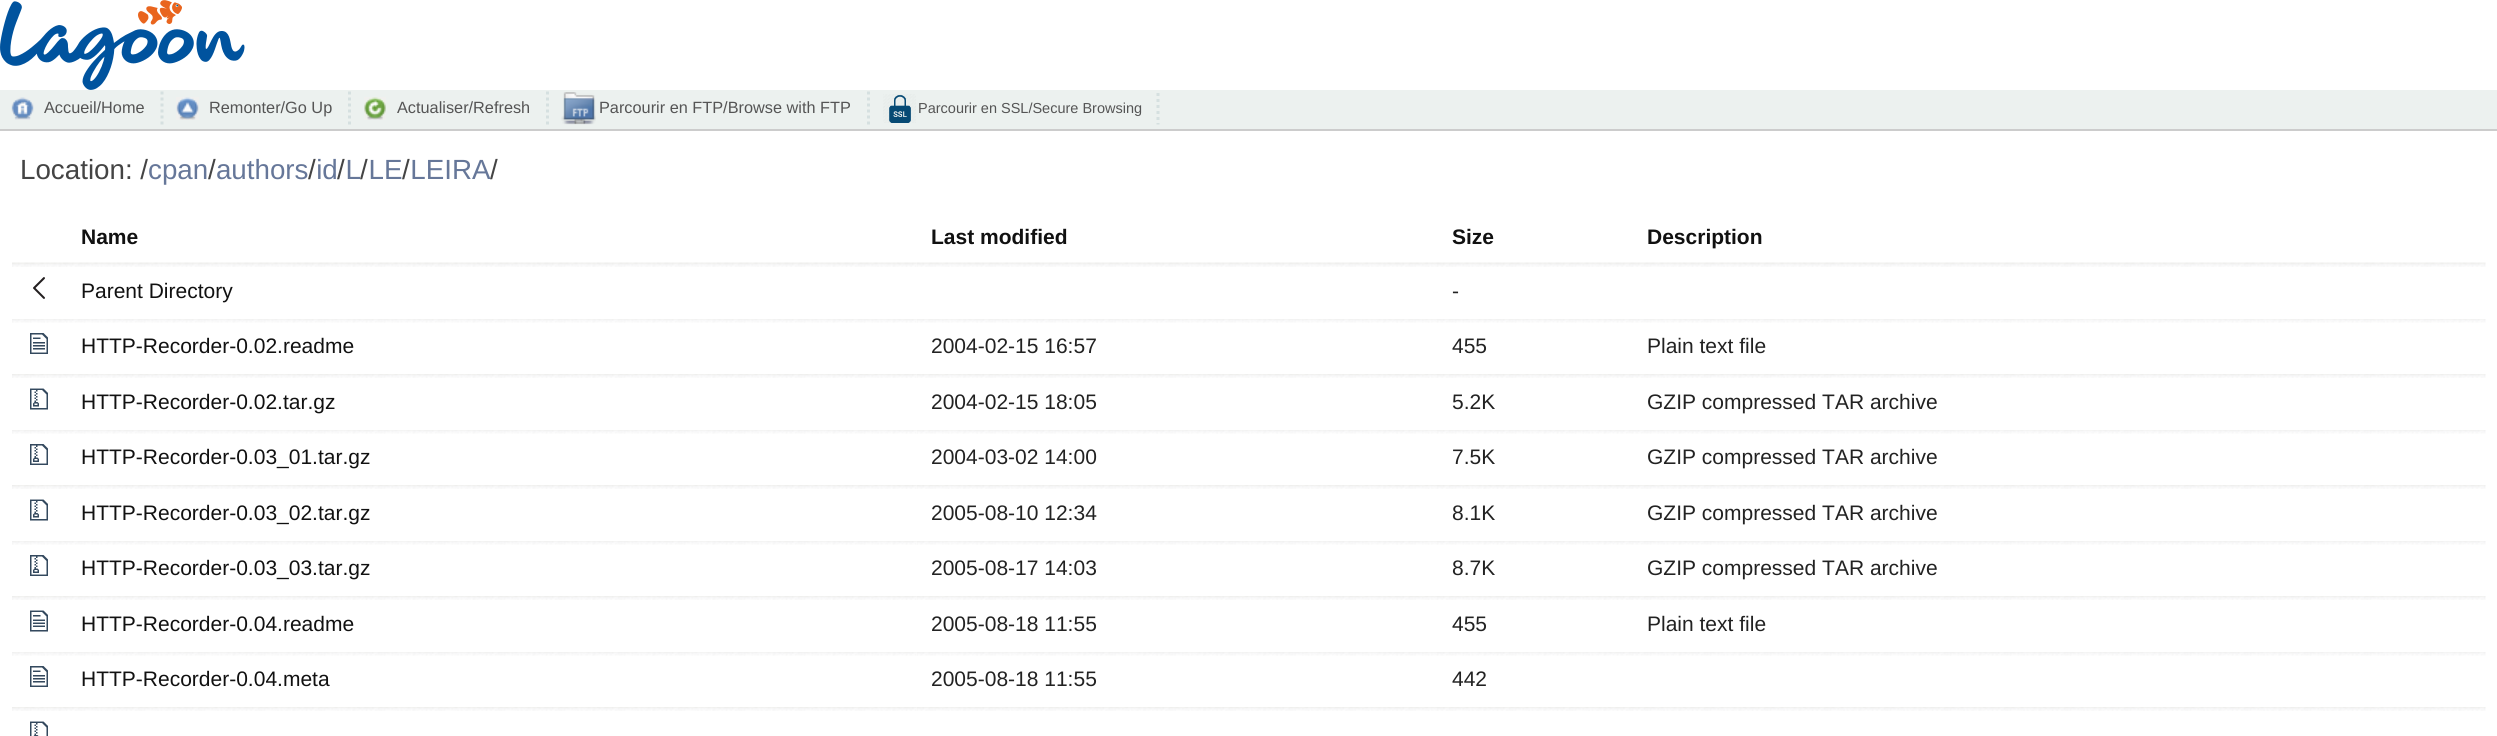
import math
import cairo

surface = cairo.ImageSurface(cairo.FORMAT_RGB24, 2497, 736)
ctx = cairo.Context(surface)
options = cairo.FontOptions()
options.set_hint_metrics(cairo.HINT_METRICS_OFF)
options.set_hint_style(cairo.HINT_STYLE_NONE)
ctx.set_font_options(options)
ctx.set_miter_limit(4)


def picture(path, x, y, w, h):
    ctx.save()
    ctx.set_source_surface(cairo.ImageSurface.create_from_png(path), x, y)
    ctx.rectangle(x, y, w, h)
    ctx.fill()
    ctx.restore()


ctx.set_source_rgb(1, 1, 1)
ctx.paint()
picture("img1.png", 0, 0, 245, 90)
ctx.set_source_rgb(0.925, 0.945, 0.937)
ctx.rectangle(0, 90, 2497, 39)
ctx.fill()
ctx.set_source_rgb(0.8, 0.8, 0.8)
ctx.rectangle(0, 129, 2497, 2)
ctx.fill()
picture("img2.png", 11, 97, 23, 23)
ctx.select_font_face("Liberation Sans")
ctx.set_font_size(16.3)
ctx.set_source_rgb(0.333, 0.333, 0.333)
ctx.move_to(44, 113)
ctx.show_text("Accueil/Home")
ctx.new_path()
ctx.move_to(162, 91.5)
ctx.line_to(162, 126)
ctx.set_source_rgb(0.835, 0.878, 0.878)
ctx.set_line_width(3)
ctx.set_dash([3, 3])
ctx.stroke()
picture("img3.png", 176, 97, 23, 23)
ctx.set_source_rgb(0.333, 0.333, 0.333)
ctx.move_to(209, 113)
ctx.show_text("Remonter/Go Up")
ctx.new_path()
ctx.move_to(349.5, 91.5)
ctx.line_to(349.5, 126)
ctx.set_source_rgb(0.835, 0.878, 0.878)
ctx.stroke()
picture("img4.png", 364, 97, 22, 23)
ctx.set_source_rgb(0.333, 0.333, 0.333)
ctx.move_to(397, 113)
ctx.show_text("Actualiser/Refresh")
ctx.new_path()
ctx.move_to(547.5, 91.5)
ctx.line_to(547.5, 126)
ctx.set_source_rgb(0.835, 0.878, 0.878)
ctx.stroke()
picture("img5.png", 561, 92, 35, 33)
ctx.set_source_rgb(0.333, 0.333, 0.333)
ctx.move_to(599, 113)
ctx.show_text("Parcourir en FTP/Browse with FTP")
ctx.new_path()
ctx.move_to(868.5, 91.5)
ctx.line_to(868.5, 126)
ctx.set_source_rgb(0.835, 0.878, 0.878)
ctx.stroke()
picture("img6.png", 883, 94, 33, 29)
ctx.set_font_size(14.5)
ctx.set_source_rgb(0.333, 0.333, 0.333)
ctx.move_to(918, 113)
ctx.show_text("Parcourir en SSL/Secure Browsing")
ctx.new_path()
ctx.move_to(1158, 93)
ctx.line_to(1158, 124.5)
ctx.set_source_rgb(0.835, 0.878, 0.878)
ctx.stroke()
ctx.set_font_size(27.75)
ctx.set_source_rgb(0.267, 0.267, 0.267)
ctx.move_to(20, 179)
ctx.show_text("Location: /")
ctx.set_source_rgb(0.4, 0.467, 0.6)
ctx.move_to(148, 179)
ctx.show_text("cpan authors id L LE LEIRA")
ctx.set_source_rgb(0.267, 0.267, 0.267)
ctx.move_to(208, 179)
ctx.show_text("/")
ctx.move_to(308, 179)
ctx.show_text("/")
ctx.move_to(337, 179)
ctx.show_text("/")
ctx.move_to(360, 179)
ctx.show_text("/")
ctx.move_to(402, 179)
ctx.show_text("/")
ctx.move_to(490, 179)
ctx.show_text("/")
ctx.select_font_face("Liberation Sans", cairo.FONT_SLANT_NORMAL, cairo.FONT_WEIGHT_BOLD)
ctx.set_font_size(21)
ctx.set_source_rgb(0.067, 0.067, 0.067)
ctx.move_to(81, 244)
ctx.show_text("Name")
ctx.move_to(931, 244)
ctx.show_text("Last modified")
ctx.move_to(1452, 244)
ctx.show_text("Size")
ctx.move_to(1647, 244)
ctx.show_text("Description")
picture("img7.png", 12, 262, 54, 5)
picture("img8.png", 33, 277, 12, 22)
picture("img11.png", 66, 262, 851, 5)
picture("img9.png", 916, 262, 521, 5)
picture("img10.png", 1632, 262, 854, 5)
ctx.select_font_face("Liberation Sans")
ctx.move_to(81, 298)
ctx.show_text("Parent Directory")
picture("img12.png", 1437, 262, 195, 5)
ctx.set_source_rgb(0.133, 0.133, 0.133)
ctx.move_to(1452, 298)
ctx.show_text("-")
picture("img13.png", 12, 319, 54, 4)
picture("img14.png", 30, 333, 18, 21)
picture("img15.png", 66, 319, 851, 4)
ctx.set_source_rgb(0.067, 0.067, 0.067)
ctx.move_to(81, 353)
ctx.show_text("HTTP-Recorder-0.02.readme")
picture("img16.png", 916, 319, 521, 4)
ctx.set_source_rgb(0.133, 0.133, 0.133)
ctx.move_to(931, 353)
ctx.show_text("2004-02-15 16:57")
picture("img17.png", 1437, 319, 195, 4)
ctx.move_to(1452, 353)
ctx.show_text("455")
picture("img18.png", 1632, 319, 854, 4)
ctx.move_to(1647, 353)
ctx.show_text("Plain text file")
picture("img19.png", 12, 374, 54, 4)
picture("img20.png", 30, 388, 18, 22)
picture("img21.png", 66, 374, 851, 4)
ctx.set_source_rgb(0.067, 0.067, 0.067)
ctx.move_to(81, 409)
ctx.show_text("HTTP-Recorder-0.02.tar.gz")
picture("img22.png", 916, 374, 521, 4)
ctx.set_source_rgb(0.133, 0.133, 0.133)
ctx.move_to(931, 409)
ctx.show_text("2004-02-15 18:05")
picture("img23.png", 1437, 374, 195, 4)
ctx.move_to(1452, 409)
ctx.show_text("5.2K")
picture("img24.png", 1632, 374, 854, 4)
ctx.move_to(1647, 409)
ctx.show_text("GZIP compressed TAR archive")
picture("img13.png", 12, 430, 54, 4)
picture("img25.png", 30, 444, 18, 21)
picture("img26.png", 66, 430, 851, 4)
ctx.set_source_rgb(0.067, 0.067, 0.067)
ctx.move_to(81, 464)
ctx.show_text("HTTP-Recorder-0.03_01.tar.gz")
picture("img27.png", 916, 430, 521, 4)
ctx.set_source_rgb(0.133, 0.133, 0.133)
ctx.move_to(931, 464)
ctx.show_text("2004-03-02 14:00")
picture("img28.png", 1437, 430, 195, 4)
ctx.move_to(1452, 464)
ctx.show_text("7.5K")
picture("img29.png", 1632, 430, 854, 4)
ctx.move_to(1647, 464)
ctx.show_text("GZIP compressed TAR archive")
picture("img19.png", 12, 485, 54, 4)
picture("img20.png", 30, 499, 18, 22)
picture("img30.png", 66, 485, 851, 4)
ctx.set_source_rgb(0.067, 0.067, 0.067)
ctx.move_to(81, 520)
ctx.show_text("HTTP-Recorder-0.03_02.tar.gz")
picture("img31.png", 916, 485, 521, 4)
ctx.set_source_rgb(0.133, 0.133, 0.133)
ctx.move_to(931, 520)
ctx.show_text("2005-08-10 12:34")
picture("img32.png", 1437, 485, 195, 4)
ctx.move_to(1452, 520)
ctx.show_text("8.1K")
picture("img33.png", 1632, 485, 854, 4)
ctx.move_to(1647, 520)
ctx.show_text("GZIP compressed TAR archive")
picture("img13.png", 12, 541, 54, 4)
picture("img25.png", 30, 555, 18, 21)
picture("img15.png", 66, 541, 851, 4)
ctx.set_source_rgb(0.067, 0.067, 0.067)
ctx.move_to(81, 575)
ctx.show_text("HTTP-Recorder-0.03_03.tar.gz")
picture("img16.png", 916, 541, 521, 4)
ctx.set_source_rgb(0.133, 0.133, 0.133)
ctx.move_to(931, 575)
ctx.show_text("2005-08-17 14:03")
picture("img17.png", 1437, 541, 195, 4)
ctx.move_to(1452, 575)
ctx.show_text("8.7K")
picture("img18.png", 1632, 541, 854, 4)
ctx.move_to(1647, 575)
ctx.show_text("GZIP compressed TAR archive")
picture("img19.png", 12, 596, 54, 4)
picture("img34.png", 30, 610, 18, 22)
picture("img35.png", 66, 596, 851, 4)
ctx.set_source_rgb(0.067, 0.067, 0.067)
ctx.move_to(81, 631)
ctx.show_text("HTTP-Recorder-0.04.readme")
picture("img36.png", 916, 596, 521, 4)
ctx.set_source_rgb(0.133, 0.133, 0.133)
ctx.move_to(931, 631)
ctx.show_text("2005-08-18 11:55")
picture("img37.png", 1437, 596, 195, 4)
ctx.move_to(1452, 631)
ctx.show_text("455")
picture("img38.png", 1632, 596, 854, 4)
ctx.move_to(1647, 631)
ctx.show_text("Plain text file")
picture("img13.png", 12, 652, 54, 4)
picture("img14.png", 30, 666, 18, 21)
picture("img39.png", 1632, 652, 854, 4)
picture("img40.png", 66, 652, 851, 4)
ctx.set_source_rgb(0.067, 0.067, 0.067)
ctx.move_to(81, 686)
ctx.show_text("HTTP-Recorder-0.04.meta")
picture("img41.png", 916, 652, 521, 4)
ctx.set_source_rgb(0.133, 0.133, 0.133)
ctx.move_to(931, 686)
ctx.show_text("2005-08-18 11:55")
picture("img42.png", 1437, 652, 195, 4)
ctx.move_to(1452, 686)
ctx.show_text("442")
picture("img19.png", 12, 707, 54, 4)
picture("img43.png", 30, 721, 18, 15)
picture("img44.png", 66, 707, 851, 4)
picture("img45.png", 916, 707, 521, 4)
picture("img46.png", 1437, 707, 195, 4)
picture("img47.png", 1632, 707, 854, 4)
surface.write_to_png("page.png")
